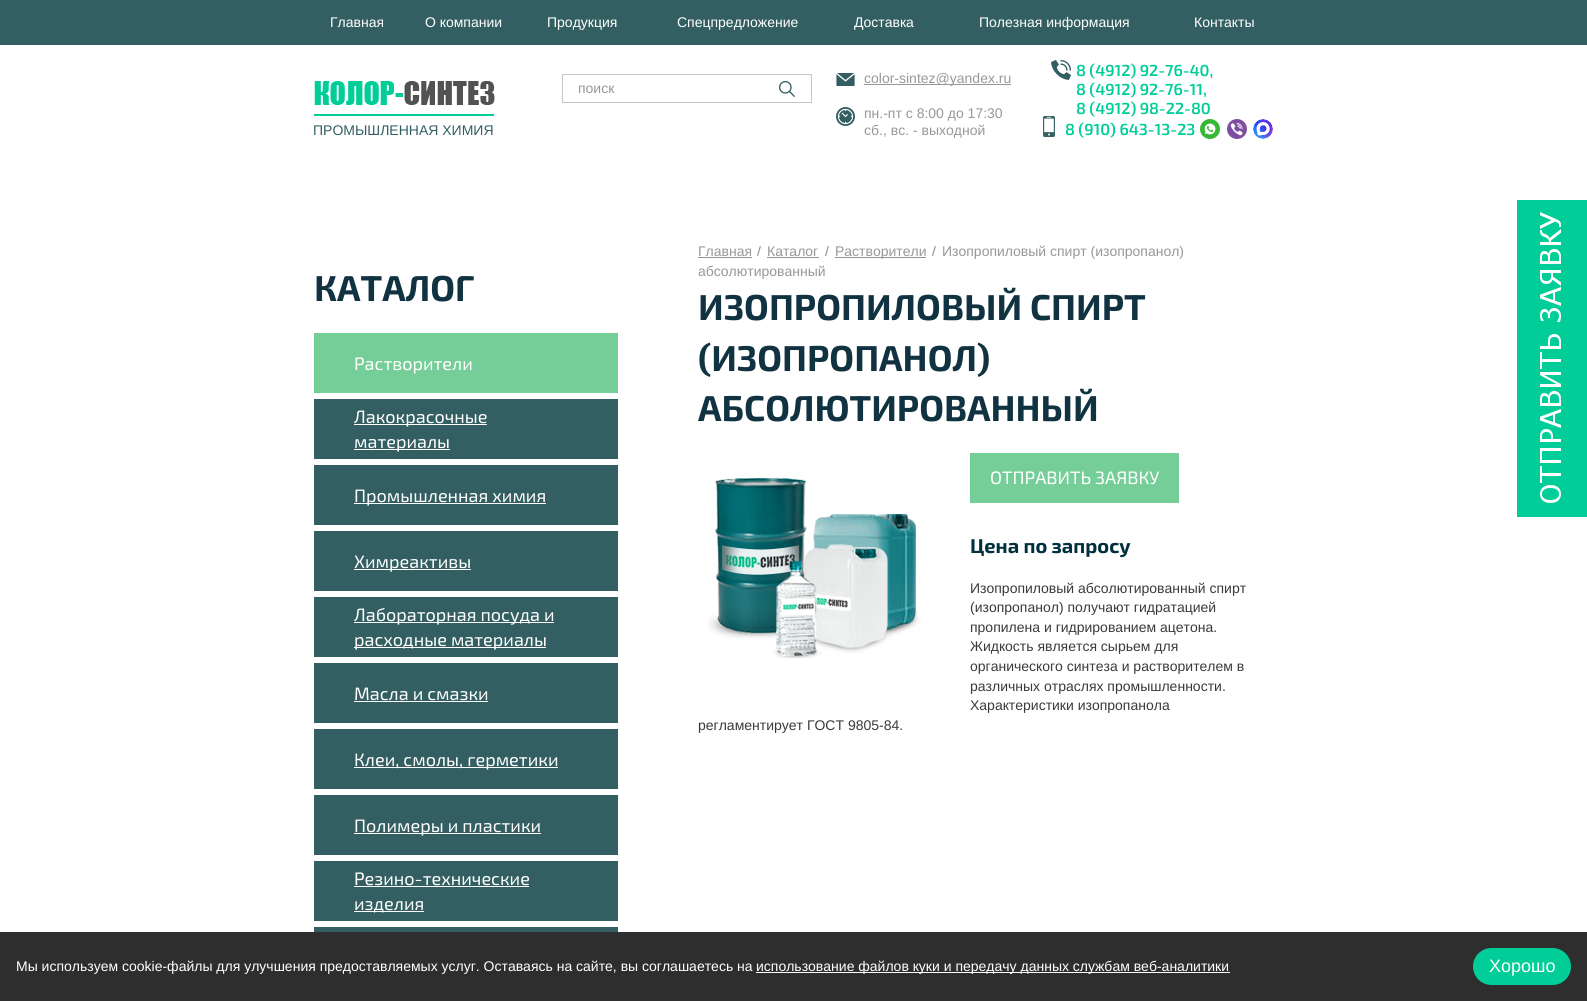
import math
import cairo

surface = cairo.ImageSurface(cairo.FORMAT_RGB24, 1587, 1001)
ctx = cairo.Context(surface)
options = cairo.FontOptions()
options.set_hint_metrics(cairo.HINT_METRICS_OFF)
options.set_hint_style(cairo.HINT_STYLE_NONE)
ctx.set_font_options(options)
ctx.set_miter_limit(4)


def round_rect(x, y, w, h, r):
    ctx.new_sub_path()
    for i, (u, v) in enumerate([(x + w - r, y + h - r), (x + r, y + h - r), (x + r, y + r), (x + w - r, y + r)]):
        ctx.arc(u, v, r, i * math.pi / 2, (i + 1) * math.pi / 2)
    ctx.close_path()


def picture(path, x, y, w, h):
    ctx.save()
    ctx.set_source_surface(cairo.ImageSurface.create_from_png(path), x, y)
    ctx.rectangle(x, y, w, h)
    ctx.fill()
    ctx.restore()


ctx.set_source_rgb(1, 1, 1)
ctx.paint()
ctx.set_source_rgb(0.2, 0.373, 0.384)
ctx.rectangle(0, 0, 1587, 45)
ctx.fill()
ctx.select_font_face("Liberation Sans")
ctx.set_font_size(14)
ctx.set_source_rgb(1, 1, 1)
ctx.move_to(330, 27)
ctx.show_text("Главная")
ctx.move_to(425, 27)
ctx.show_text("О компании")
ctx.move_to(547, 27)
ctx.show_text("Продукция")
ctx.move_to(677, 27)
ctx.show_text("Спецпредложение")
ctx.move_to(854, 27)
ctx.show_text("Доставка")
ctx.move_to(979, 27)
ctx.show_text("Полезная информация")
ctx.move_to(1194, 27)
ctx.show_text("Контакты")
picture("img1.png", 836, 73, 19, 13)
ctx.set_source_rgb(0.596, 0.596, 0.596)
ctx.rectangle(864, 84, 147, 1)
ctx.fill()
ctx.move_to(864, 83)
ctx.show_text("color-sintez@yandex.ru")
picture("img2.png", 1051, 60, 20, 20)
ctx.select_font_face("Exo 2 SemiBold")
ctx.set_font_size(16)
ctx.set_source_rgb(0, 0.804, 0.596)
ctx.move_to(1076, 76)
ctx.show_text("8 (4912) 92-76-40,")
ctx.move_to(1076, 95)
ctx.show_text("8 (4912) 92-76-11,")
ctx.move_to(1076, 114)
ctx.show_text("8 (4912) 98-22-80")
ctx.rectangle(562.5, 74.5, 249, 28)
ctx.set_source_rgb(0.773, 0.773, 0.773)
ctx.set_line_width(1)
ctx.stroke()
ctx.select_font_face("Liberation Sans")
ctx.set_font_size(14)
ctx.set_source_rgb(0.596, 0.596, 0.596)
ctx.move_to(578, 93)
ctx.show_text("поиск")
picture("img3.png", 779, 81, 16, 16)
picture("img4.png", 314, 81, 181, 24)
ctx.set_source_rgb(0, 0.804, 0.596)
ctx.rectangle(314, 114, 180, 2)
ctx.fill()
ctx.set_source_rgb(0.2, 0.373, 0.384)
ctx.move_to(313, 135)
ctx.show_text("ПРОМЫШЛЕННАЯ ХИМИЯ")
picture("img5.png", 836, 107, 19, 19)
ctx.set_source_rgb(0.596, 0.596, 0.596)
ctx.move_to(864, 118)
ctx.show_text("пн.-пт с 8:00 до 17:30")
ctx.move_to(864, 135)
ctx.show_text("сб., вс. - выходной")
picture("img6.png", 1043, 116, 12, 21)
ctx.select_font_face("Exo 2 SemiBold")
ctx.set_font_size(16)
ctx.set_source_rgb(0, 0.804, 0.596)
ctx.move_to(1065, 135)
ctx.show_text("8 (910) 643-13-23")
picture("img7.png", 1200, 119, 20, 20)
picture("img8.png", 1227, 119, 20, 20)
picture("img9.png", 1253, 119, 20, 20)
ctx.select_font_face("Exo 2", cairo.FONT_SLANT_NORMAL, cairo.FONT_WEIGHT_BOLD)
ctx.set_font_size(36)
ctx.set_source_rgb(0.067, 0.2, 0.255)
ctx.move_to(314, 301)
ctx.show_text("КАТАЛОГ")
ctx.set_source_rgb(0.459, 0.804, 0.596)
ctx.rectangle(314, 333, 304, 60)
ctx.fill()
ctx.select_font_face("Exo 2")
ctx.set_font_size(18)
ctx.set_source_rgb(1, 1, 1)
ctx.move_to(354, 370)
ctx.show_text("Растворители")
ctx.set_source_rgb(0.2, 0.369, 0.384)
ctx.rectangle(314, 399, 304, 60)
ctx.fill()
ctx.set_source_rgb(1, 1, 1)
ctx.rectangle(354, 424, 133, 1)
ctx.fill()
ctx.move_to(354, 423)
ctx.show_text("Лакокрасочные")
ctx.rectangle(354, 449, 96, 1)
ctx.fill()
ctx.move_to(354, 448)
ctx.show_text("материалы")
ctx.set_source_rgb(0.2, 0.369, 0.384)
ctx.rectangle(314, 465, 304, 60)
ctx.fill()
ctx.set_source_rgb(1, 1, 1)
ctx.rectangle(354, 503, 192, 1)
ctx.fill()
ctx.move_to(354, 502)
ctx.show_text("Промышленная химия")
ctx.set_source_rgb(0.2, 0.369, 0.384)
ctx.rectangle(314, 531, 304, 60)
ctx.fill()
ctx.set_source_rgb(1, 1, 1)
ctx.rectangle(354, 569, 117, 1)
ctx.fill()
ctx.move_to(354, 568)
ctx.show_text("Химреактивы")
ctx.set_source_rgb(0.2, 0.369, 0.384)
ctx.rectangle(314, 597, 304, 60)
ctx.fill()
ctx.set_source_rgb(1, 1, 1)
ctx.rectangle(354, 622, 200, 1)
ctx.fill()
ctx.move_to(354, 621)
ctx.show_text("Лабораторная посуда и")
ctx.rectangle(354, 647, 192, 1)
ctx.fill()
ctx.move_to(354, 646)
ctx.show_text("расходные материалы")
ctx.set_source_rgb(0.2, 0.369, 0.384)
ctx.rectangle(314, 663, 304, 60)
ctx.fill()
ctx.set_source_rgb(1, 1, 1)
ctx.move_to(354, 700)
ctx.show_text("Масла и смазки")
ctx.rectangle(354, 701, 134, 1)
ctx.fill()
ctx.set_source_rgb(0.2, 0.369, 0.384)
ctx.rectangle(314, 729, 304, 60)
ctx.fill()
ctx.set_source_rgb(1, 1, 1)
ctx.rectangle(354, 767, 204, 1)
ctx.fill()
ctx.move_to(354, 766)
ctx.show_text("Клеи, смолы, герметики")
ctx.set_source_rgb(0.2, 0.369, 0.384)
ctx.rectangle(314, 795, 304, 60)
ctx.fill()
ctx.set_source_rgb(1, 1, 1)
ctx.rectangle(354, 833, 187, 1)
ctx.fill()
ctx.move_to(354, 832)
ctx.show_text("Полимеры и пластики")
ctx.set_source_rgb(0.2, 0.369, 0.384)
ctx.rectangle(314, 861, 304, 60)
ctx.fill()
ctx.set_source_rgb(1, 1, 1)
ctx.move_to(354, 885)
ctx.show_text("Резино-технические")
ctx.rectangle(354, 886, 175, 1)
ctx.fill()
ctx.rectangle(354, 911, 70, 1)
ctx.fill()
ctx.move_to(354, 910)
ctx.show_text("изделия")
ctx.set_source_rgb(0.2, 0.369, 0.384)
ctx.rectangle(314, 927, 304, 5)
ctx.fill()
ctx.select_font_face("Liberation Sans")
ctx.set_font_size(14)
ctx.set_source_rgb(0.596, 0.596, 0.596)
ctx.move_to(698, 256)
ctx.show_text("Главная")
ctx.set_source_rgb(0.58, 0.58, 0.58)
ctx.rectangle(698, 257, 54, 1)
ctx.fill()
picture("img10.png", 757, 246, 4, 10)
ctx.set_source_rgb(0.596, 0.596, 0.596)
ctx.move_to(767, 256)
ctx.show_text("Каталог")
ctx.set_source_rgb(0.58, 0.58, 0.58)
ctx.rectangle(767, 257, 52, 1)
ctx.fill()
picture("img10.png", 825, 246, 4, 10)
ctx.rectangle(835, 257, 91, 1)
ctx.fill()
ctx.set_source_rgb(0.596, 0.596, 0.596)
ctx.move_to(835, 256)
ctx.show_text("Растворители")
picture("img10.png", 932, 246, 4, 10)
ctx.move_to(942, 256)
ctx.show_text("Изопропиловый спирт (изопропанол)")
ctx.move_to(698, 276)
ctx.show_text("абсолютированный")
ctx.select_font_face("Exo 2", cairo.FONT_SLANT_NORMAL, cairo.FONT_WEIGHT_BOLD)
ctx.set_font_size(36)
ctx.set_source_rgb(0.067, 0.2, 0.255)
ctx.move_to(698, 320)
ctx.show_text("ИЗОПРОПИЛОВЫЙ СПИРТ")
ctx.move_to(698, 371)
ctx.show_text("(ИЗОПРОПАНОЛ)")
ctx.move_to(698, 421)
ctx.show_text("АБСОЛЮТИРОВАННЫЙ")
picture("img11.png", 707, 478, 215, 181)
ctx.set_source_rgb(0.459, 0.804, 0.596)
ctx.rectangle(970, 453, 209, 50)
ctx.fill()
ctx.select_font_face("Exo 2")
ctx.set_font_size(18)
ctx.set_source_rgb(1, 1, 1)
ctx.move_to(990, 484)
ctx.show_text("ОТПРАВИТЬ ЗАЯВКУ")
ctx.select_font_face("Exo 2", cairo.FONT_SLANT_NORMAL, cairo.FONT_WEIGHT_BOLD)
ctx.set_font_size(20)
ctx.set_source_rgb(0, 0.188, 0.247)
ctx.move_to(970, 553)
ctx.show_text("Цена по запросу")
ctx.select_font_face("Liberation Sans")
ctx.set_font_size(14)
ctx.set_source_rgb(0.227, 0.227, 0.227)
ctx.move_to(970, 593)
ctx.show_text("Изопропиловый абсолютированный спирт")
ctx.move_to(970, 612)
ctx.show_text("(изопропанол) получают гидратацией")
ctx.move_to(970, 632)
ctx.show_text("пропилена и гидрированием ацетона.")
ctx.move_to(970, 651)
ctx.show_text("Жидкость является сырьем для")
ctx.move_to(970, 671)
ctx.show_text("органического синтеза и растворителем в")
ctx.move_to(970, 691)
ctx.show_text("различных отраслях промышленности.")
ctx.move_to(970, 710)
ctx.show_text("Характеристики изопропанола")
ctx.move_to(698, 730)
ctx.show_text("регламентирует ГОСТ 9805-84.")
picture("img12.png", 1517, 200, 70, 317)
ctx.set_source_rgb(0.18, 0.18, 0.18)
ctx.rectangle(0, 932, 1587, 69)
ctx.fill()
ctx.set_source_rgb(1, 1, 1)
ctx.move_to(16, 971)
ctx.show_text("Мы используем cookie-файлы для улучшения предоставляемых услуг. Оставаясь на сайте, вы соглашаетесь на")
ctx.rectangle(756, 972, 474, 1)
ctx.fill()
ctx.move_to(756, 971)
ctx.show_text("использование файлов куки и передачу данных службам веб-аналитики")
ctx.set_source_rgb(0, 0.804, 0.596)
round_rect(1473, 948, 98, 37, 18.5)
ctx.fill()
ctx.set_font_size(18)
ctx.set_source_rgb(1, 1, 1)
ctx.move_to(1489, 972)
ctx.show_text("Хорошо")
surface.write_to_png("page.png")
